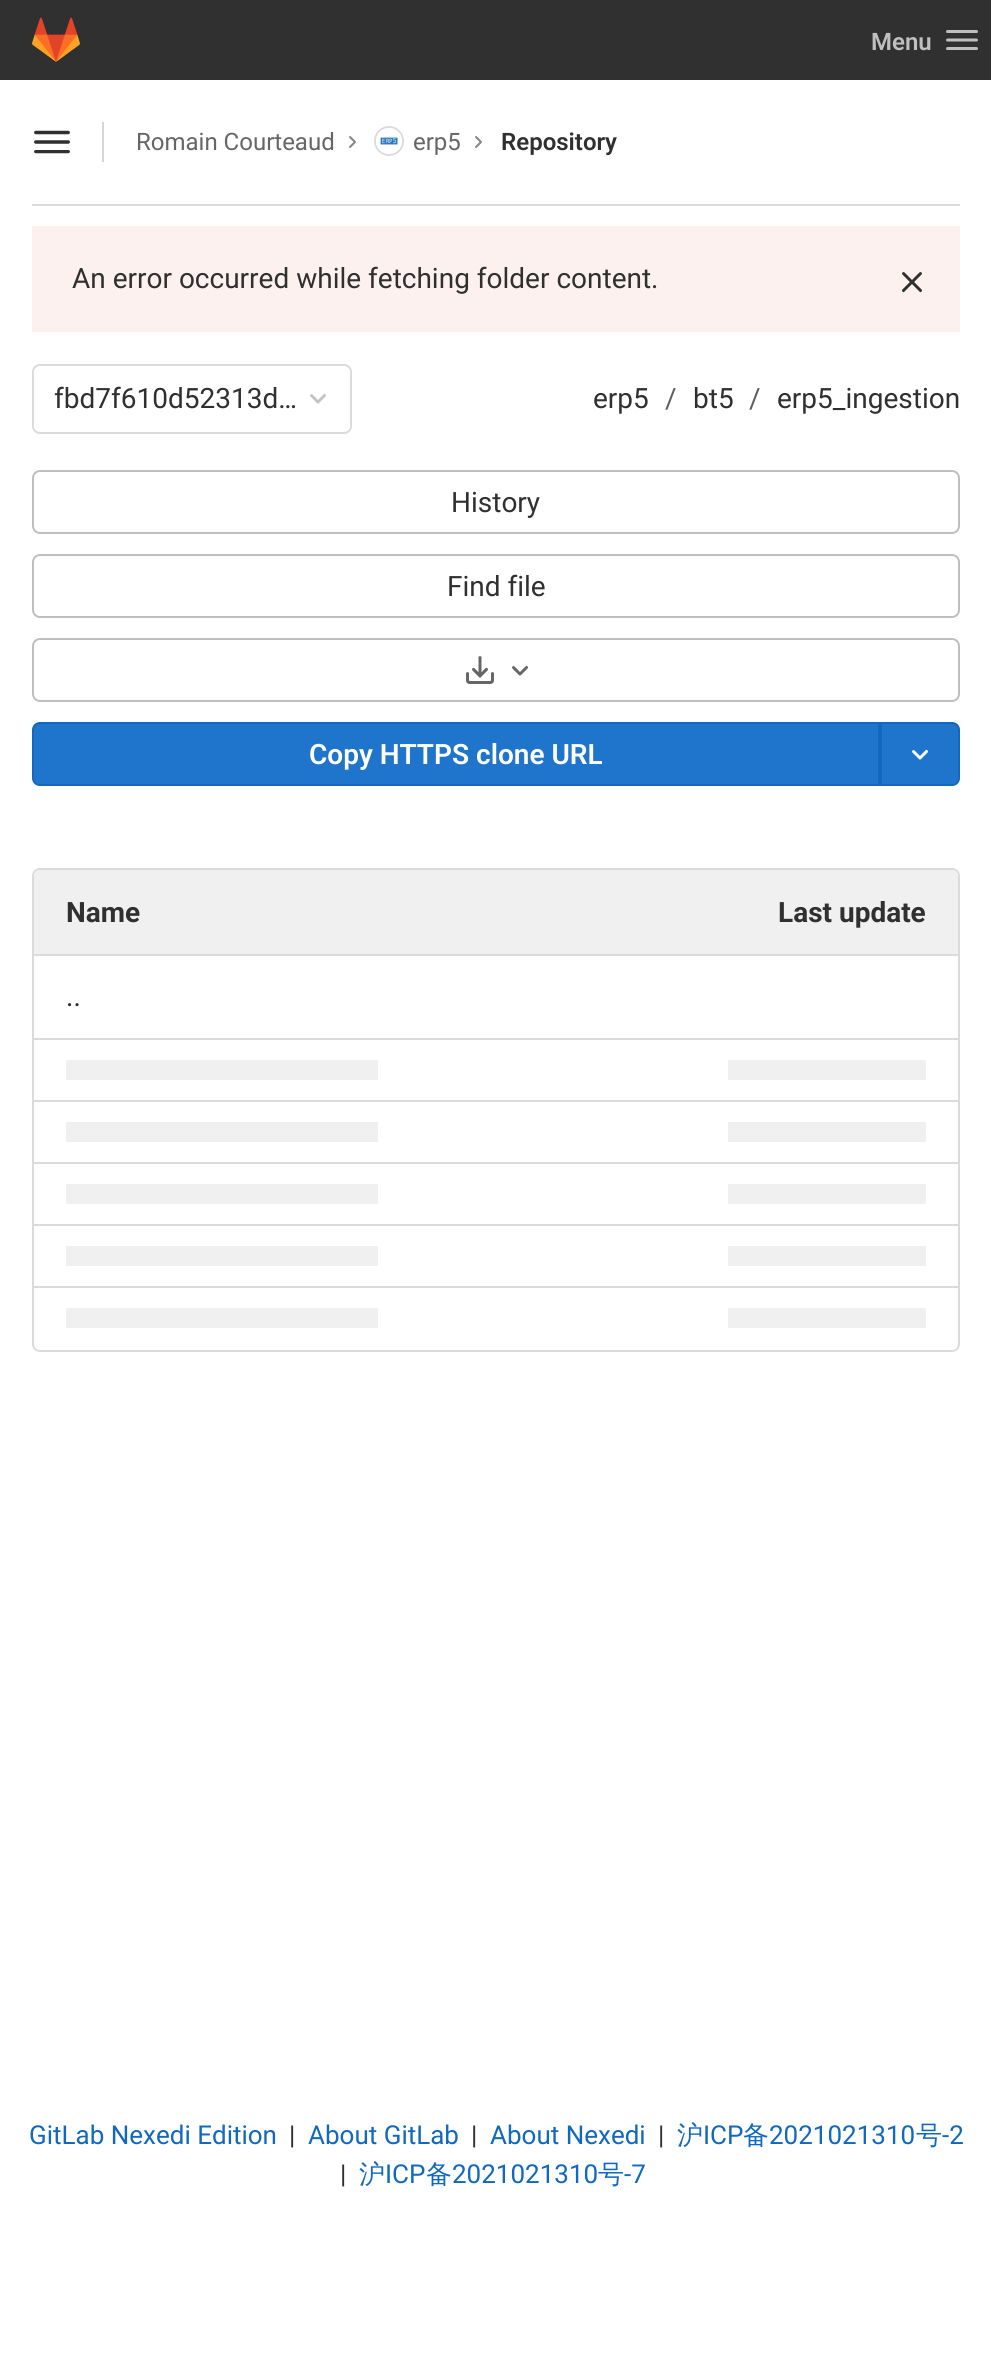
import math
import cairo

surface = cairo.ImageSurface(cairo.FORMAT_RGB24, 991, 2361)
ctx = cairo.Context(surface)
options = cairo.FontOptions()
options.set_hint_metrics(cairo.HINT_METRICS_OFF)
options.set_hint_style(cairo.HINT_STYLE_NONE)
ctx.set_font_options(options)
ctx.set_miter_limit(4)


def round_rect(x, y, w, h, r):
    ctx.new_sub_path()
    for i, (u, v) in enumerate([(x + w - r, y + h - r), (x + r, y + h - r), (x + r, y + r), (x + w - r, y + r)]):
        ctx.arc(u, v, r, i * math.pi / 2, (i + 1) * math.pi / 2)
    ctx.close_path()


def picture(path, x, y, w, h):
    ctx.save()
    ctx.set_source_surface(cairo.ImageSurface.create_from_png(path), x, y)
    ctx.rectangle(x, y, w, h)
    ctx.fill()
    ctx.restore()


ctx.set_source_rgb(1, 1, 1)
ctx.paint()
ctx.set_source_rgb(0.188, 0.188, 0.188)
ctx.rectangle(0, 0, 991, 80)
ctx.fill()
picture("img1.png", 32, 17, 48, 45)
ctx.select_font_face("Roboto SemiBold")
ctx.set_font_size(24)
ctx.set_source_rgb(0.749, 0.749, 0.749)
ctx.move_to(871, 50)
ctx.show_text("Menu")
picture("img2.png", 946, 30, 32, 20)
ctx.set_source_rgb(0.859, 0.859, 0.859)
ctx.rectangle(32, 204, 928, 2)
ctx.fill()
picture("img3.png", 34, 130, 36, 24)
ctx.set_source_rgb(0.839, 0.839, 0.839)
ctx.rectangle(102, 122, 2, 40)
ctx.fill()
ctx.select_font_face("Roboto")
ctx.set_source_rgb(0.4, 0.4, 0.4)
ctx.move_to(136, 150)
ctx.show_text("Romain Courteaud")
picture("img4.png", 349, 136, 7, 12)
ctx.arc(389, 141, 14, 0, 2 * math.pi)
ctx.set_source_rgb(0.859, 0.859, 0.859)
ctx.stroke()
picture("img5.png", 376, 128, 26, 26)
ctx.set_source_rgb(0.4, 0.4, 0.4)
ctx.move_to(413, 150)
ctx.show_text("erp5")
picture("img4.png", 475, 136, 7, 12)
ctx.select_font_face("Roboto SemiBold")
ctx.set_source_rgb(0.188, 0.188, 0.188)
ctx.move_to(501, 150)
ctx.show_text("Repository")
ctx.set_source_rgb(0.988, 0.945, 0.937)
ctx.rectangle(32, 226, 928, 106)
ctx.fill()
ctx.select_font_face("Roboto")
ctx.set_font_size(28)
ctx.set_source_rgb(0.188, 0.188, 0.188)
ctx.move_to(72, 288)
ctx.show_text("An error occurred while fetching folder content.")
picture("img6.png", 901, 272, 22, 21)
round_rect(33, 365, 318, 68, 7)
ctx.set_source_rgb(0.859, 0.859, 0.859)
ctx.stroke()
ctx.set_source_rgb(0.188, 0.188, 0.188)
ctx.move_to(54, 408)
ctx.show_text("fbd7f610d52313d…")
picture("img7.png", 310, 393, 16, 11)
ctx.move_to(593, 408)
ctx.show_text("erp5")
ctx.set_source_rgb(0.369, 0.369, 0.369)
ctx.move_to(665, 408)
ctx.show_text("/")
ctx.set_source_rgb(0.188, 0.188, 0.188)
ctx.move_to(693, 408)
ctx.show_text("bt5")
ctx.set_source_rgb(0.369, 0.369, 0.369)
ctx.move_to(749, 408)
ctx.show_text("/")
ctx.set_source_rgb(0.188, 0.188, 0.188)
ctx.move_to(777, 408)
ctx.show_text("erp5_ingestion")
round_rect(33, 471, 926, 62, 7)
ctx.set_source_rgb(0.749, 0.749, 0.749)
ctx.stroke()
ctx.set_source_rgb(0.188, 0.188, 0.188)
ctx.move_to(451, 512)
ctx.show_text("History")
round_rect(33, 555, 926, 62, 7)
ctx.set_source_rgb(0.749, 0.749, 0.749)
ctx.stroke()
ctx.set_source_rgb(0.188, 0.188, 0.188)
ctx.move_to(447, 596)
ctx.show_text("Find file")
round_rect(33, 639, 926, 62, 7)
ctx.set_source_rgb(0.749, 0.749, 0.749)
ctx.stroke()
picture("img8.png", 466, 656, 28, 28)
picture("img9.png", 512, 665, 16, 11)
ctx.set_source_rgb(0.122, 0.459, 0.796)
ctx.new_path()
ctx.move_to(40, 723)
ctx.line_to(879, 723)
ctx.line_to(879, 785)
ctx.line_to(40, 785)
ctx.curve_to(36, 785, 33, 782, 33, 778)
ctx.line_to(33, 730)
ctx.curve_to(33, 726, 36, 723, 40, 723)
ctx.close_path()
ctx.fill_preserve()
ctx.set_source_rgb(0.063, 0.408, 0.749)
ctx.stroke()
ctx.save()
ctx.rectangle(310, 736, 292, 36)
ctx.clip()
ctx.select_font_face("Roboto SemiBold")
ctx.set_source_rgb(1, 1, 1)
ctx.move_to(309, 764)
ctx.show_text("Copy HTTPS clone URL")
ctx.restore()
ctx.set_source_rgb(0.122, 0.459, 0.796)
ctx.new_path()
ctx.move_to(881, 723)
ctx.line_to(952, 723)
ctx.curve_to(956, 723, 959, 726, 959, 730)
ctx.line_to(959, 778)
ctx.curve_to(959, 782, 956, 785, 952, 785)
ctx.line_to(881, 785)
ctx.close_path()
ctx.fill_preserve()
ctx.set_source_rgb(0.063, 0.408, 0.749)
ctx.stroke()
picture("img10.png", 912, 749, 17, 11)
round_rect(33, 869, 926, 482, 7)
ctx.set_source_rgb(0.859, 0.859, 0.859)
ctx.stroke()
ctx.save()
round_rect(34, 870, 924, 480, 6)
ctx.clip()
ctx.set_source_rgb(0.941, 0.941, 0.941)
ctx.rectangle(34, 870, 924, 2)
ctx.fill()
ctx.rectangle(34, 872, 462, 82)
ctx.fill()
ctx.restore()
ctx.select_font_face("Roboto", cairo.FONT_SLANT_NORMAL, cairo.FONT_WEIGHT_BOLD)
ctx.set_source_rgb(0.188, 0.188, 0.188)
ctx.move_to(66, 922)
ctx.show_text("Name")
ctx.save()
round_rect(34, 870, 924, 480, 6)
ctx.clip()
ctx.set_source_rgb(0.941, 0.941, 0.941)
ctx.rectangle(496, 872, 462, 82)
ctx.fill()
ctx.restore()
ctx.move_to(778, 922)
ctx.show_text("Last update")
ctx.set_source_rgb(0.859, 0.859, 0.859)
ctx.rectangle(34, 954, 924, 2)
ctx.fill()
ctx.select_font_face("Roboto")
ctx.set_source_rgb(0.188, 0.188, 0.188)
ctx.move_to(66, 1006)
ctx.show_text("..")
ctx.set_source_rgb(0.859, 0.859, 0.859)
ctx.rectangle(34, 1038, 924, 2)
ctx.fill()
ctx.set_source_rgb(0.941, 0.941, 0.941)
ctx.rectangle(728, 1060, 198, 20)
ctx.fill()
ctx.rectangle(66, 1060, 312, 20)
ctx.fill()
ctx.set_source_rgb(0.859, 0.859, 0.859)
ctx.rectangle(34, 1100, 924, 2)
ctx.fill()
ctx.set_source_rgb(0.941, 0.941, 0.941)
ctx.rectangle(728, 1122, 198, 20)
ctx.fill()
ctx.rectangle(66, 1122, 312, 20)
ctx.fill()
ctx.set_source_rgb(0.859, 0.859, 0.859)
ctx.rectangle(34, 1162, 924, 2)
ctx.fill()
ctx.set_source_rgb(0.941, 0.941, 0.941)
ctx.rectangle(728, 1184, 198, 20)
ctx.fill()
ctx.rectangle(66, 1184, 312, 20)
ctx.fill()
ctx.set_source_rgb(0.859, 0.859, 0.859)
ctx.rectangle(34, 1224, 924, 2)
ctx.fill()
ctx.set_source_rgb(0.941, 0.941, 0.941)
ctx.rectangle(728, 1246, 198, 20)
ctx.fill()
ctx.rectangle(66, 1246, 312, 20)
ctx.fill()
ctx.save()
round_rect(34, 870, 924, 480, 6)
ctx.clip()
ctx.set_source_rgb(1, 1, 1)
ctx.rectangle(34, 1348, 924, 2)
ctx.fill()
ctx.restore()
ctx.set_source_rgb(0.859, 0.859, 0.859)
ctx.rectangle(34, 1286, 924, 2)
ctx.fill()
ctx.set_source_rgb(0.941, 0.941, 0.941)
ctx.rectangle(728, 1308, 198, 20)
ctx.fill()
ctx.rectangle(66, 1308, 312, 20)
ctx.fill()
ctx.set_font_size(26)
ctx.set_source_rgb(0.063, 0.408, 0.749)
ctx.move_to(29, 2144)
ctx.show_text("GitLab Nexedi Edition")
ctx.set_source_rgb(0.188, 0.188, 0.188)
ctx.move_to(289, 2144)
ctx.show_text("|")
ctx.set_source_rgb(0.063, 0.408, 0.749)
ctx.move_to(308, 2144)
ctx.show_text("About GitLab")
ctx.set_source_rgb(0.188, 0.188, 0.188)
ctx.move_to(471, 2144)
ctx.show_text("|")
ctx.set_source_rgb(0.063, 0.408, 0.749)
ctx.move_to(490, 2144)
ctx.show_text("About Nexedi")
ctx.set_source_rgb(0.188, 0.188, 0.188)
ctx.move_to(658, 2144)
ctx.show_text("|")
ctx.select_font_face("WenQuanYi Zen Hei Medium")
ctx.set_source_rgb(0.063, 0.408, 0.749)
ctx.move_to(677, 2144)
ctx.show_text("沪")
ctx.select_font_face("Roboto")
ctx.move_to(703, 2144)
ctx.show_text("ICP")
ctx.select_font_face("WenQuanYi Zen Hei Medium")
ctx.move_to(743, 2144)
ctx.show_text("备")
ctx.select_font_face("Roboto")
ctx.move_to(769, 2144)
ctx.show_text("2021021310")
ctx.select_font_face("WenQuanYi Zen Hei Medium")
ctx.move_to(916, 2144)
ctx.show_text("号")
ctx.select_font_face("Roboto")
ctx.move_to(942, 2144)
ctx.show_text("-2")
ctx.set_source_rgb(0.188, 0.188, 0.188)
ctx.move_to(340, 2183)
ctx.show_text("|")
ctx.select_font_face("WenQuanYi Zen Hei Medium")
ctx.set_source_rgb(0.063, 0.408, 0.749)
ctx.move_to(359, 2183)
ctx.show_text("沪")
ctx.select_font_face("Roboto")
ctx.move_to(385, 2183)
ctx.show_text("ICP")
ctx.select_font_face("WenQuanYi Zen Hei Medium")
ctx.move_to(426, 2183)
ctx.show_text("备")
ctx.select_font_face("Roboto")
ctx.move_to(452, 2183)
ctx.show_text("2021021310")
ctx.select_font_face("WenQuanYi Zen Hei Medium")
ctx.move_to(598, 2183)
ctx.show_text("号")
ctx.select_font_face("Roboto")
ctx.move_to(624, 2183)
ctx.show_text("-7")
surface.write_to_png("page.png")
